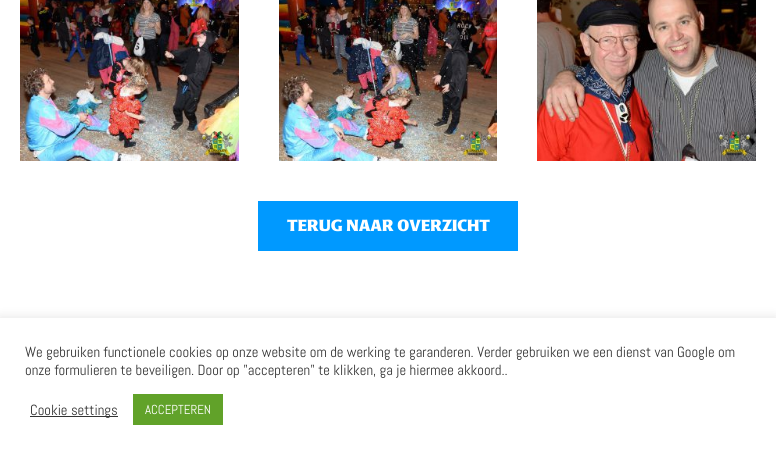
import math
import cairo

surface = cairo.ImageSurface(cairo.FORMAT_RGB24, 776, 455)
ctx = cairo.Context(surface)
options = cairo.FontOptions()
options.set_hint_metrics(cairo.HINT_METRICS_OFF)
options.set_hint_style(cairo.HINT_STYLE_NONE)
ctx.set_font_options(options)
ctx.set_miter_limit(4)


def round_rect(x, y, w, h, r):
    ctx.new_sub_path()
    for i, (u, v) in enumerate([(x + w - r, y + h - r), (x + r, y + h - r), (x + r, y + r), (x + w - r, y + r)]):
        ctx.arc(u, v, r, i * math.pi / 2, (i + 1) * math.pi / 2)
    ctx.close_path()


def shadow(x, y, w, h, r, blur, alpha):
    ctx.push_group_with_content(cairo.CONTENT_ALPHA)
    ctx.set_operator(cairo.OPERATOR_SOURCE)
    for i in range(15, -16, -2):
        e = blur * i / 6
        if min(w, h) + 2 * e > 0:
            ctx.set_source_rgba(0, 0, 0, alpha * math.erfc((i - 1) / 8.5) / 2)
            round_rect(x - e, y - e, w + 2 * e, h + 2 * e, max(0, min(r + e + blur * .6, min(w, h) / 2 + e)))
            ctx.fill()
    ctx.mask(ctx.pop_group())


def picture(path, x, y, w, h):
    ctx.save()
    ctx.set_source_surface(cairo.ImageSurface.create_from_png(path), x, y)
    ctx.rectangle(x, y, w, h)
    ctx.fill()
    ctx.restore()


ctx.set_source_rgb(1, 1, 1)
ctx.paint()
picture("img1.png", 20, 0, 219, 161)
picture("img2.png", 279, 0, 218, 161)
picture("img3.png", 537, 0, 219, 161)
ctx.set_source_rgb(0, 0.6, 1)
ctx.rectangle(258, 201, 260, 50)
ctx.fill()
ctx.select_font_face("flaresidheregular")
ctx.set_font_size(16)
ctx.set_source_rgb(1, 1, 1)
ctx.move_to(287, 231)
ctx.show_text("TERUG NAAR OVERZICHT")
ctx.set_source_rgb(0.675, 0.671, 0.671)
shadow(0, 317, 776, 137, 0, 5, 0.3)
ctx.set_source_rgb(1, 1, 1)
ctx.rectangle(0, 318, 776, 137)
ctx.fill()
ctx.select_font_face("Abel")
ctx.set_font_size(14.65)
ctx.set_source_rgb(0.2, 0.2, 0.2)
ctx.move_to(25, 357)
ctx.show_text("We gebruiken functionele cookies op onze website om de werking te garanderen. Verder gebruiken we een dienst van Google om")
ctx.move_to(25, 375)
ctx.show_text("onze formulieren te beveiligen. Door op \"accepteren\" te klikken, ga je hiermee akkoord..")
ctx.rectangle(30, 416, 88, 1)
ctx.fill()
ctx.move_to(30, 415)
ctx.show_text("Cookie settings")
ctx.set_source_rgb(0.38, 0.635, 0.161)
ctx.rectangle(133, 394, 90, 31)
ctx.fill()
ctx.set_font_size(13)
ctx.set_source_rgb(1, 1, 1)
ctx.move_to(145, 414)
ctx.show_text("ACCEPTEREN")
surface.write_to_png("page.png")
